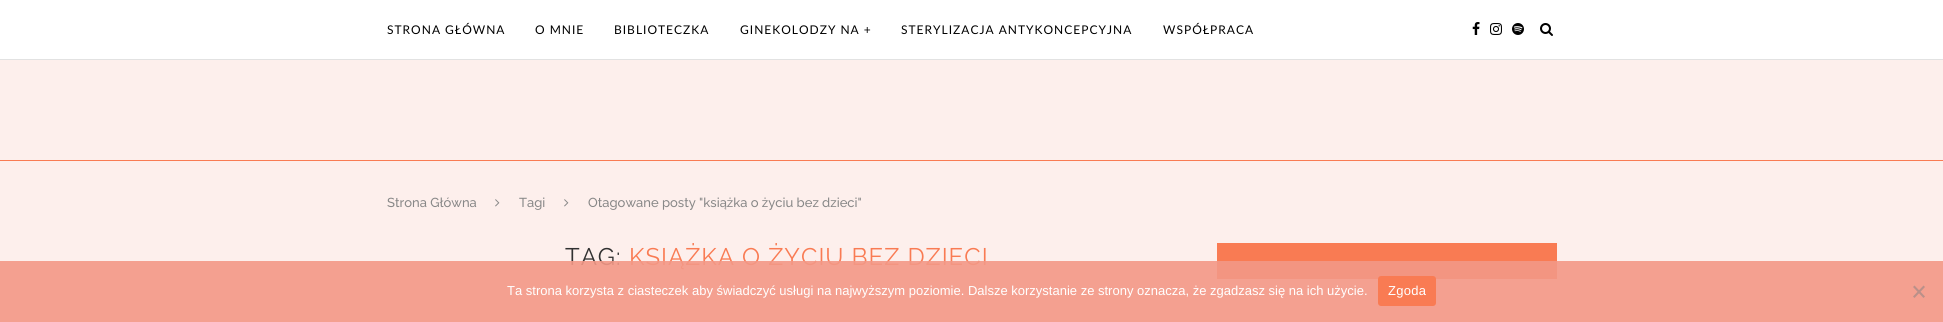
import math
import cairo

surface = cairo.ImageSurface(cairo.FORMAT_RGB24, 1943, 322)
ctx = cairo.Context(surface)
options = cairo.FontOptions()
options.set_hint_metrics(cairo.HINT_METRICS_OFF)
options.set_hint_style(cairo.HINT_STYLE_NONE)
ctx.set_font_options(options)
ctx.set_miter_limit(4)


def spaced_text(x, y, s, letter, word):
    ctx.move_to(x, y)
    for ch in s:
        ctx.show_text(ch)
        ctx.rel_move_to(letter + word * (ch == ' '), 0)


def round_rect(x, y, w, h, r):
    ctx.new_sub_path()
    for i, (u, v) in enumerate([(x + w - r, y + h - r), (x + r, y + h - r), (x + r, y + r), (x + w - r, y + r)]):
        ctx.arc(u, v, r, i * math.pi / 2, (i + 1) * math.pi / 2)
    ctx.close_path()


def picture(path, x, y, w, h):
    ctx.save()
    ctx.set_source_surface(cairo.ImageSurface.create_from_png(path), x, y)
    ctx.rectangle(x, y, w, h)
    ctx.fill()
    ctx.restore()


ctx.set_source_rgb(0.992, 0.937, 0.925)
ctx.paint()
ctx.set_source_rgb(1, 1, 1)
ctx.rectangle(0, 0, 1943, 59)
ctx.fill()
ctx.set_source_rgb(0.886, 0.886, 0.886)
ctx.rectangle(0, 59, 1943, 1)
ctx.fill()
ctx.select_font_face("Lato")
ctx.set_font_size(12)
ctx.set_source_rgb(0, 0, 0)
spaced_text(387, 34, "STRONA GŁÓWNA", 1, 0)
spaced_text(535, 34, "O MNIE", 1, 0)
spaced_text(614, 34, "BIBLIOTECZKA", 1, 0)
spaced_text(740, 34, "GINEKOLODZY NA +", 1, 0)
spaced_text(901, 34, "STERYLIZACJA ANTYKONCEPCYJNA", 1, 0)
spaced_text(1163, 34, "WSPÓŁPRACA", 1, 0)
picture("img1.png", 1472, 22, 8, 13)
picture("img2.png", 1490, 23, 12, 12)
picture("img3.png", 1512, 23, 12, 12)
picture("img4.png", 1540, 23, 13, 13)
ctx.set_source_rgb(0.976, 0.482, 0.325)
ctx.rectangle(0, 160, 1943, 1)
ctx.fill()
ctx.select_font_face("Raleway Medium")
ctx.set_font_size(13)
ctx.set_source_rgb(0.533, 0.533, 0.533)
ctx.move_to(387, 207)
ctx.show_text("Strona Główna")
picture("img5.png", 495, 199, 5, 8)
ctx.move_to(519, 207)
ctx.show_text("Tagi")
picture("img5.png", 564, 199, 5, 8)
ctx.move_to(588, 207)
ctx.show_text("Otagowane posty \"książka o życiu bez dzieci\"")
ctx.select_font_face("Raleway")
ctx.set_font_size(24)
ctx.set_source_rgb(0.192, 0.192, 0.192)
spaced_text(565, 265, "TAG:", 1, 0)
ctx.set_source_rgb(0.976, 0.482, 0.325)
spaced_text(629, 265, "KSIĄŻKA O ŻYCIU BEZ DZIECI", 1, 0)
ctx.rectangle(1217, 243, 340, 36)
ctx.fill()
ctx.set_source_rgba(0.953, 0.596, 0.529, 0.9)
ctx.rectangle(0, 261, 1943, 61)
ctx.fill()
ctx.select_font_face("Liberation Sans")
ctx.set_font_size(13)
ctx.set_source_rgb(1, 1, 1)
ctx.move_to(507, 295)
ctx.show_text("Ta strona korzysta z ciasteczek aby świadczyć usługi na najwyższym poziomie. Dalsze korzystanie ze strony oznacza, że zgadzasz się na ich użycie.")
ctx.set_source_rgb(0.976, 0.482, 0.325)
round_rect(1378, 276, 58, 30, 3)
ctx.fill()
ctx.set_source_rgb(1, 1, 1)
spaced_text(1388, 295, "Zgoda", 0.25, 0)
ctx.set_source_rgb(0.729, 0.565, 0.537)
ctx.new_path()
ctx.move_to(1923.5, 285.5)
ctx.line_to(1925, 287)
ctx.line_to(1914.5, 298)
ctx.line_to(1913, 296.5)
ctx.close_path()
ctx.fill()
ctx.new_path()
ctx.move_to(1913, 287)
ctx.line_to(1914.5, 285.5)
ctx.line_to(1925, 296.5)
ctx.line_to(1923.5, 298)
ctx.close_path()
ctx.fill()
surface.write_to_png("page.png")
